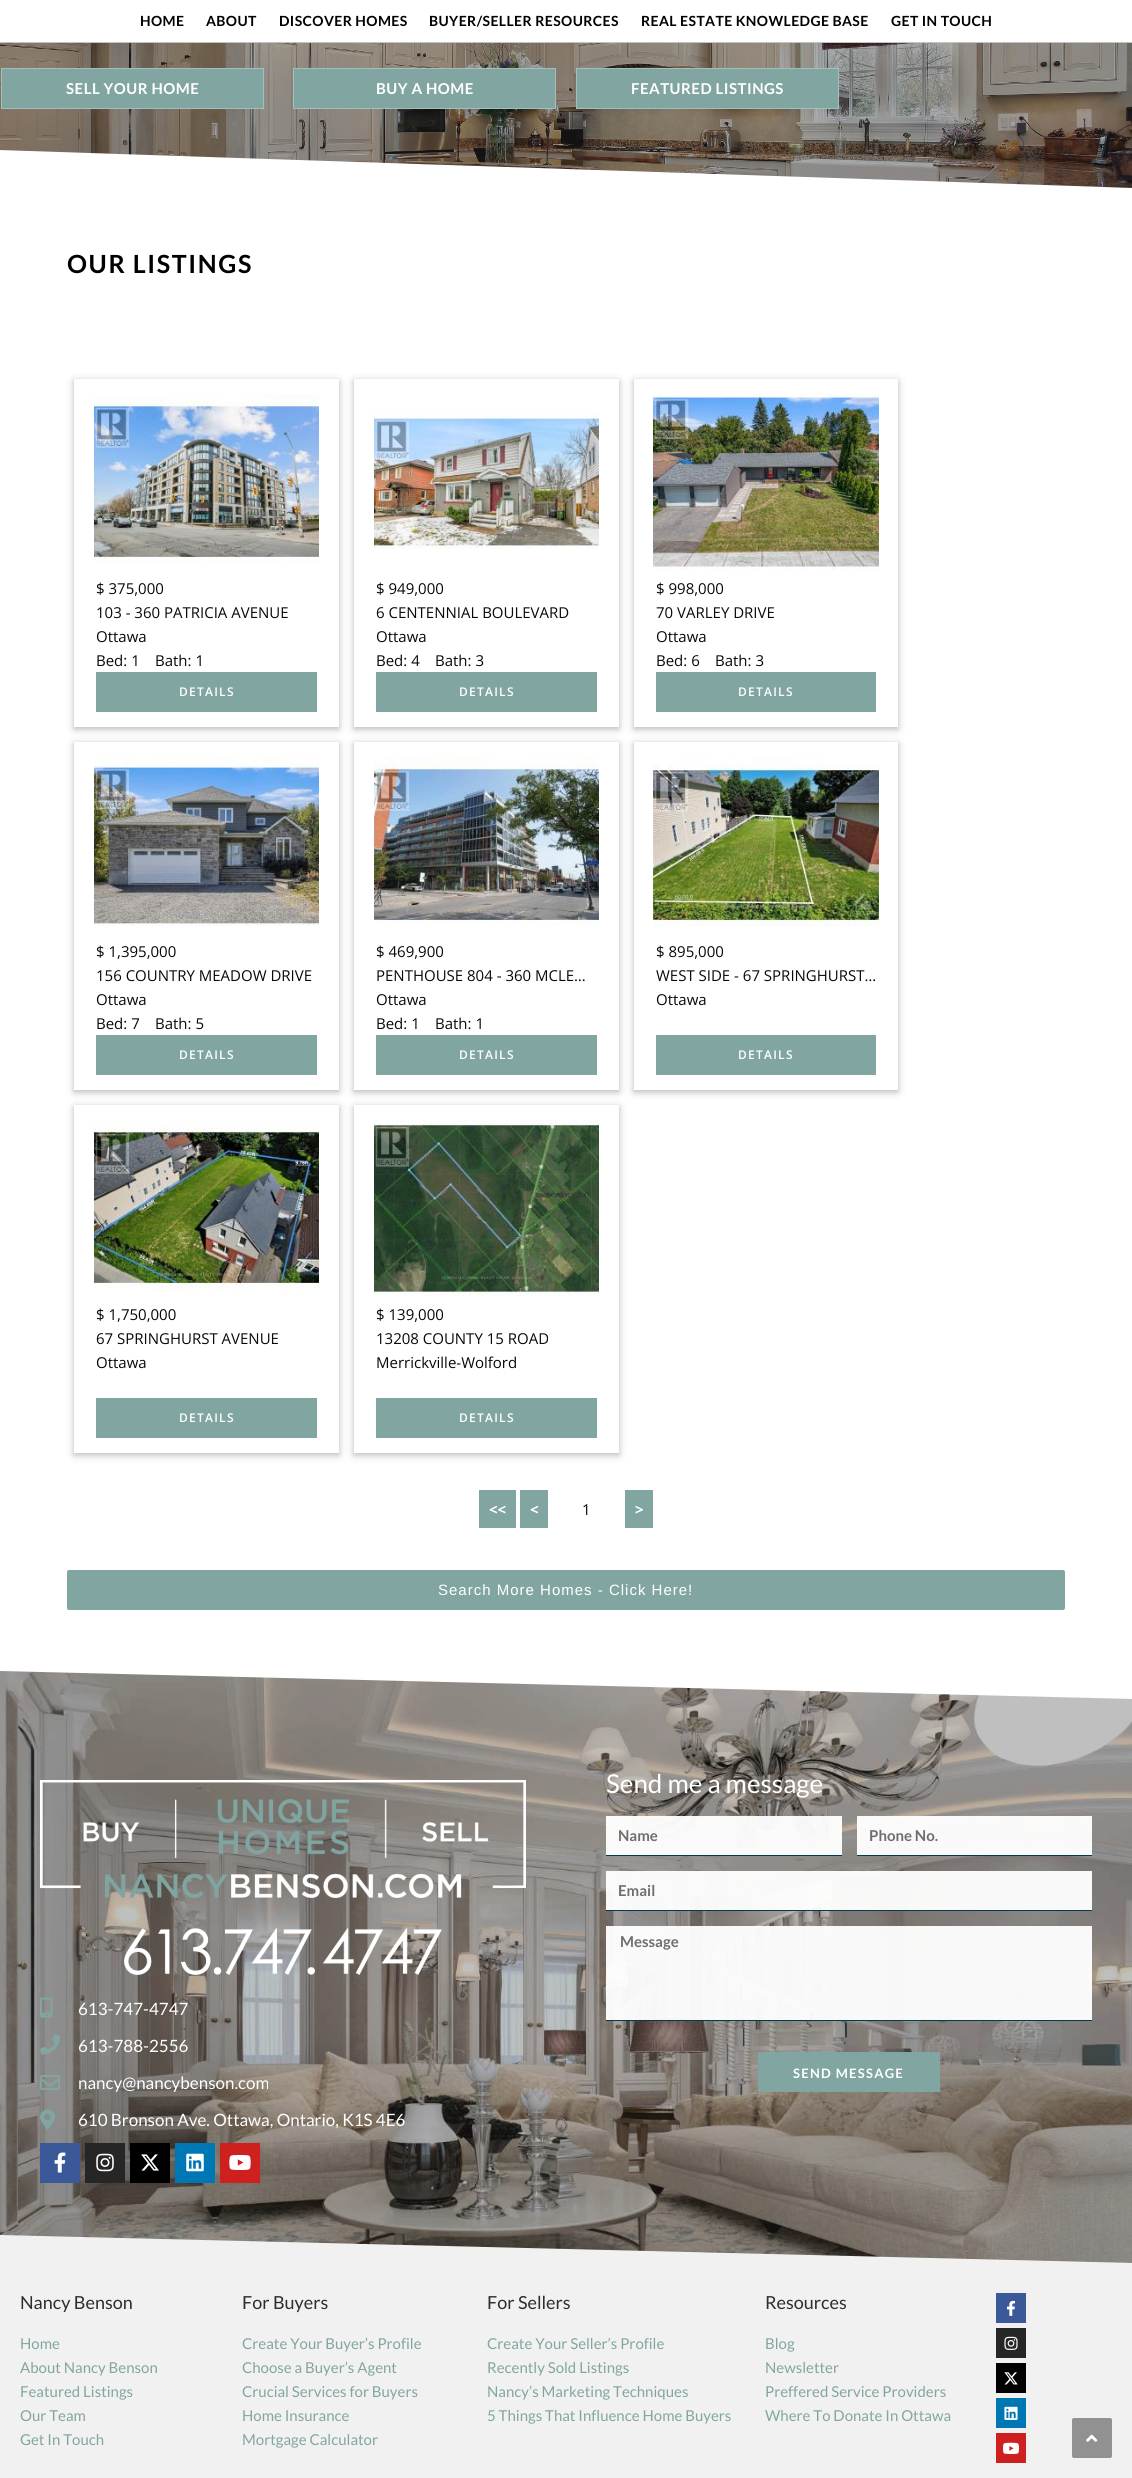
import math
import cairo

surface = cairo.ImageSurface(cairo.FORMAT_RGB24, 1132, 2478)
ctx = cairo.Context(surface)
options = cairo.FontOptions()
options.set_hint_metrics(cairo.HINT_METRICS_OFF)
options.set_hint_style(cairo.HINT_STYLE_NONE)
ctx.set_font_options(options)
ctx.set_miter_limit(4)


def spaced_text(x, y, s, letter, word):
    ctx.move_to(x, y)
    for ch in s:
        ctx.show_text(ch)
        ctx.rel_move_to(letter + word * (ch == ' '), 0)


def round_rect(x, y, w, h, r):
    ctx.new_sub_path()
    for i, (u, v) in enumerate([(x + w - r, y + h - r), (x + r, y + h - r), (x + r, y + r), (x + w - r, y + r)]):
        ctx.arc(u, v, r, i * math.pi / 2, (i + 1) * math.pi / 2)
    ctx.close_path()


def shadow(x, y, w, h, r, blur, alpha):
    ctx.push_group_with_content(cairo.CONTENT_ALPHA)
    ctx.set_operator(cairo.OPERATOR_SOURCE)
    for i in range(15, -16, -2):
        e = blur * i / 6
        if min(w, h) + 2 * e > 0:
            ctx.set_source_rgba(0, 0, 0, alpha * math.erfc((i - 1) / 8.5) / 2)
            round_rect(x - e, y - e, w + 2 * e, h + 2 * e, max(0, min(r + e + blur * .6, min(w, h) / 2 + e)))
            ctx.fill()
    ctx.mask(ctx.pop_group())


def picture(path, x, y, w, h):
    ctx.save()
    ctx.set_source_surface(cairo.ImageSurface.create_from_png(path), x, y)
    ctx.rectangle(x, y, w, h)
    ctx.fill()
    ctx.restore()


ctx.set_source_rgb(1, 1, 1)
ctx.paint()
ctx.set_source_rgb(0.761, 0.761, 0.761)
ctx.rectangle(0, 42, 1132, 1)
ctx.fill()
ctx.select_font_face("Lato", cairo.FONT_SLANT_NORMAL, cairo.FONT_WEIGHT_BOLD)
ctx.set_font_size(14)
ctx.set_source_rgb(0, 0, 0)
spaced_text(140, 26, "HOME", 0.4, 0)
spaced_text(206, 26, "ABOUT", 0.4, 0)
spaced_text(279, 26, "DISCOVER HOMES", 0.4, 0)
spaced_text(429, 26, "BUYER/SELLER RESOURCES", 0.4, 0)
spaced_text(641, 26, "REAL ESTATE KNOWLEDGE BASE", 0.4, 0)
spaced_text(891, 26, "GET IN TOUCH", 0.4, 0)
picture("img1.png", 0, 43, 1132, 145)
ctx.set_source_rgb(0.506, 0.651, 0.635)
ctx.rectangle(1.5, 68.5, 262, 40)
ctx.fill_preserve()
ctx.set_source_rgb(0.639, 0.745, 0.733)
ctx.set_line_width(1)
ctx.stroke()
ctx.set_font_size(15)
ctx.set_source_rgb(1, 1, 1)
spaced_text(66, 94, "SELL YOUR HOME", 0.5, 0)
ctx.set_source_rgb(0.506, 0.651, 0.635)
ctx.rectangle(293.5, 68.5, 262, 40)
ctx.fill_preserve()
ctx.set_source_rgb(0.639, 0.745, 0.733)
ctx.stroke()
ctx.set_source_rgb(1, 1, 1)
spaced_text(376, 94, "BUY A HOME", 0.5, 0)
ctx.set_source_rgb(0.506, 0.651, 0.635)
ctx.rectangle(576.5, 68.5, 262, 40)
ctx.fill_preserve()
ctx.set_source_rgb(0.639, 0.745, 0.733)
ctx.stroke()
ctx.set_source_rgb(1, 1, 1)
spaced_text(631, 94, "FEATURED LISTINGS", 0.5, 0)
ctx.new_path()
ctx.move_to(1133, 188)
ctx.line_to(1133, 190)
ctx.line_to(-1, 190)
ctx.line_to(-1, 150)
ctx.close_path()
ctx.fill()
ctx.set_font_size(25)
ctx.set_source_rgb(0, 0, 0)
spaced_text(67, 273, "OUR LISTINGS", 1.6, 0)
ctx.save()
ctx.set_fill_rule(cairo.FILL_RULE_EVEN_ODD)
ctx.new_path()
ctx.move_to(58, 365)
ctx.line_to(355, 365)
ctx.line_to(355, 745)
ctx.line_to(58, 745)
ctx.close_path()
ctx.move_to(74, 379)
ctx.line_to(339, 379)
ctx.line_to(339, 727)
ctx.line_to(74, 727)
ctx.close_path()
ctx.clip()
ctx.set_source_rgb(0, 0, 0)
shadow(74, 381, 265, 348, 0, 5, 0.15)
ctx.restore()
ctx.save()
ctx.set_fill_rule(cairo.FILL_RULE_EVEN_ODD)
ctx.new_path()
ctx.move_to(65, 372)
ctx.line_to(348, 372)
ctx.line_to(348, 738)
ctx.line_to(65, 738)
ctx.close_path()
ctx.move_to(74, 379)
ctx.line_to(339, 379)
ctx.line_to(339, 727)
ctx.line_to(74, 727)
ctx.close_path()
ctx.clip()
ctx.set_source_rgb(0, 0, 0)
shadow(74, 381, 265, 348, 0, 2.5, 0.15)
ctx.restore()
picture("img2.png", 94, 394, 225, 169)
ctx.select_font_face("Open Sans")
ctx.set_font_size(15)
ctx.set_source_rgb(0.039, 0.039, 0.039)
ctx.move_to(96, 594)
ctx.show_text("$ 375,000")
ctx.move_to(96, 618)
ctx.show_text("103 - 360 PATRICIA AVENUE")
ctx.move_to(96, 642)
ctx.show_text("Ottawa")
ctx.move_to(96, 666)
ctx.show_text("Bed: 1")
ctx.move_to(155, 666)
ctx.show_text("Bath: 1")
ctx.set_source_rgb(0.506, 0.651, 0.635)
ctx.rectangle(96, 672, 221, 40)
ctx.fill()
ctx.select_font_face("Open Sans SemiBold")
ctx.set_font_size(12)
ctx.set_source_rgb(1, 1, 1)
spaced_text(179, 696, "DETAILS", 1.25, 0)
ctx.save()
ctx.set_fill_rule(cairo.FILL_RULE_EVEN_ODD)
ctx.new_path()
ctx.move_to(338, 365)
ctx.line_to(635, 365)
ctx.line_to(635, 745)
ctx.line_to(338, 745)
ctx.close_path()
ctx.move_to(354, 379)
ctx.line_to(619, 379)
ctx.line_to(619, 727)
ctx.line_to(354, 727)
ctx.close_path()
ctx.clip()
ctx.set_source_rgb(0, 0, 0)
shadow(354, 381, 265, 348, 0, 5, 0.15)
ctx.restore()
ctx.save()
ctx.set_fill_rule(cairo.FILL_RULE_EVEN_ODD)
ctx.new_path()
ctx.move_to(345, 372)
ctx.line_to(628, 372)
ctx.line_to(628, 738)
ctx.line_to(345, 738)
ctx.close_path()
ctx.move_to(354, 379)
ctx.line_to(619, 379)
ctx.line_to(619, 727)
ctx.line_to(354, 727)
ctx.close_path()
ctx.clip()
ctx.set_source_rgb(0, 0, 0)
shadow(354, 381, 265, 348, 0, 2.5, 0.15)
ctx.restore()
picture("img3.png", 374, 408, 225, 141)
ctx.select_font_face("Open Sans")
ctx.set_font_size(15)
ctx.set_source_rgb(0.039, 0.039, 0.039)
ctx.move_to(376, 594)
ctx.show_text("$ 949,000")
ctx.move_to(376, 618)
ctx.show_text("6 CENTENNIAL BOULEVARD")
ctx.move_to(376, 642)
ctx.show_text("Ottawa")
ctx.move_to(376, 666)
ctx.show_text("Bed: 4")
ctx.move_to(435, 666)
ctx.show_text("Bath: 3")
ctx.set_source_rgb(0.506, 0.651, 0.635)
ctx.rectangle(376, 672, 221, 40)
ctx.fill()
ctx.select_font_face("Open Sans SemiBold")
ctx.set_font_size(12)
ctx.set_source_rgb(1, 1, 1)
spaced_text(459, 696, "DETAILS", 1.25, 0)
ctx.save()
ctx.set_fill_rule(cairo.FILL_RULE_EVEN_ODD)
ctx.new_path()
ctx.move_to(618, 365)
ctx.line_to(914, 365)
ctx.line_to(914, 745)
ctx.line_to(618, 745)
ctx.close_path()
ctx.move_to(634, 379)
ctx.line_to(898, 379)
ctx.line_to(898, 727)
ctx.line_to(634, 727)
ctx.close_path()
ctx.clip()
ctx.set_source_rgb(0, 0, 0)
shadow(634, 381, 264, 348, 0, 5, 0.15)
ctx.restore()
ctx.save()
ctx.set_fill_rule(cairo.FILL_RULE_EVEN_ODD)
ctx.new_path()
ctx.move_to(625, 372)
ctx.line_to(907, 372)
ctx.line_to(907, 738)
ctx.line_to(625, 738)
ctx.close_path()
ctx.move_to(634, 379)
ctx.line_to(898, 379)
ctx.line_to(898, 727)
ctx.line_to(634, 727)
ctx.close_path()
ctx.clip()
ctx.set_source_rgb(0, 0, 0)
shadow(634, 381, 264, 348, 0, 2.5, 0.15)
ctx.restore()
picture("img4.png", 653, 394, 226, 176)
ctx.select_font_face("Open Sans")
ctx.set_font_size(15)
ctx.set_source_rgb(0.039, 0.039, 0.039)
ctx.move_to(656, 594)
ctx.show_text("$ 998,000")
ctx.move_to(656, 618)
ctx.show_text("70 VARLEY DRIVE")
ctx.move_to(656, 642)
ctx.show_text("Ottawa")
ctx.move_to(656, 666)
ctx.show_text("Bed: 6")
ctx.move_to(715, 666)
ctx.show_text("Bath: 3")
ctx.set_source_rgb(0.506, 0.651, 0.635)
ctx.rectangle(656, 672, 220, 40)
ctx.fill()
ctx.select_font_face("Open Sans SemiBold")
ctx.set_font_size(12)
ctx.set_source_rgb(1, 1, 1)
spaced_text(738, 696, "DETAILS", 1.25, 0)
ctx.save()
ctx.set_fill_rule(cairo.FILL_RULE_EVEN_ODD)
ctx.new_path()
ctx.move_to(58, 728)
ctx.line_to(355, 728)
ctx.line_to(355, 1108)
ctx.line_to(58, 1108)
ctx.close_path()
ctx.move_to(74, 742)
ctx.line_to(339, 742)
ctx.line_to(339, 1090)
ctx.line_to(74, 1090)
ctx.close_path()
ctx.clip()
ctx.set_source_rgb(0, 0, 0)
shadow(74, 744, 265, 348, 0, 5, 0.15)
ctx.restore()
ctx.save()
ctx.set_fill_rule(cairo.FILL_RULE_EVEN_ODD)
ctx.new_path()
ctx.move_to(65, 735)
ctx.line_to(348, 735)
ctx.line_to(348, 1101)
ctx.line_to(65, 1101)
ctx.close_path()
ctx.move_to(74, 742)
ctx.line_to(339, 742)
ctx.line_to(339, 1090)
ctx.line_to(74, 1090)
ctx.close_path()
ctx.clip()
ctx.set_source_rgb(0, 0, 0)
shadow(74, 744, 265, 348, 0, 2.5, 0.15)
ctx.restore()
picture("img5.png", 94, 757, 225, 169)
ctx.select_font_face("Open Sans")
ctx.set_font_size(15)
ctx.set_source_rgb(0.039, 0.039, 0.039)
ctx.move_to(96, 957)
ctx.show_text("$ 1,395,000")
ctx.move_to(96, 981)
ctx.show_text("156 COUNTRY MEADOW DRIVE")
ctx.move_to(96, 1005)
ctx.show_text("Ottawa")
ctx.move_to(96, 1029)
ctx.show_text("Bed: 7")
ctx.move_to(155, 1029)
ctx.show_text("Bath: 5")
ctx.set_source_rgb(0.506, 0.651, 0.635)
ctx.rectangle(96, 1035, 221, 40)
ctx.fill()
ctx.select_font_face("Open Sans SemiBold")
ctx.set_font_size(12)
ctx.set_source_rgb(1, 1, 1)
spaced_text(179, 1059, "DETAILS", 1.25, 0)
ctx.save()
ctx.set_fill_rule(cairo.FILL_RULE_EVEN_ODD)
ctx.new_path()
ctx.move_to(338, 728)
ctx.line_to(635, 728)
ctx.line_to(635, 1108)
ctx.line_to(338, 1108)
ctx.close_path()
ctx.move_to(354, 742)
ctx.line_to(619, 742)
ctx.line_to(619, 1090)
ctx.line_to(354, 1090)
ctx.close_path()
ctx.clip()
ctx.set_source_rgb(0, 0, 0)
shadow(354, 744, 265, 348, 0, 5, 0.15)
ctx.restore()
ctx.save()
ctx.set_fill_rule(cairo.FILL_RULE_EVEN_ODD)
ctx.new_path()
ctx.move_to(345, 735)
ctx.line_to(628, 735)
ctx.line_to(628, 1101)
ctx.line_to(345, 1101)
ctx.close_path()
ctx.move_to(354, 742)
ctx.line_to(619, 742)
ctx.line_to(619, 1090)
ctx.line_to(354, 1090)
ctx.close_path()
ctx.clip()
ctx.set_source_rgb(0, 0, 0)
shadow(354, 744, 265, 348, 0, 2.5, 0.15)
ctx.restore()
picture("img6.png", 374, 757, 225, 169)
ctx.select_font_face("Open Sans")
ctx.set_font_size(15)
ctx.set_source_rgb(0.039, 0.039, 0.039)
ctx.move_to(376, 957)
ctx.show_text("$ 469,900")
ctx.move_to(376, 981)
ctx.show_text("PENTHOUSE 804 - 360 MCLE…")
ctx.move_to(376, 1005)
ctx.show_text("Ottawa")
ctx.move_to(376, 1029)
ctx.show_text("Bed: 1")
ctx.move_to(435, 1029)
ctx.show_text("Bath: 1")
ctx.set_source_rgb(0.506, 0.651, 0.635)
ctx.rectangle(376, 1035, 221, 40)
ctx.fill()
ctx.select_font_face("Open Sans SemiBold")
ctx.set_font_size(12)
ctx.set_source_rgb(1, 1, 1)
spaced_text(459, 1059, "DETAILS", 1.25, 0)
ctx.save()
ctx.set_fill_rule(cairo.FILL_RULE_EVEN_ODD)
ctx.new_path()
ctx.move_to(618, 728)
ctx.line_to(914, 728)
ctx.line_to(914, 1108)
ctx.line_to(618, 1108)
ctx.close_path()
ctx.move_to(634, 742)
ctx.line_to(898, 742)
ctx.line_to(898, 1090)
ctx.line_to(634, 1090)
ctx.close_path()
ctx.clip()
ctx.set_source_rgb(0, 0, 0)
shadow(634, 744, 264, 348, 0, 5, 0.15)
ctx.restore()
ctx.save()
ctx.set_fill_rule(cairo.FILL_RULE_EVEN_ODD)
ctx.new_path()
ctx.move_to(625, 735)
ctx.line_to(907, 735)
ctx.line_to(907, 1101)
ctx.line_to(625, 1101)
ctx.close_path()
ctx.move_to(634, 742)
ctx.line_to(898, 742)
ctx.line_to(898, 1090)
ctx.line_to(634, 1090)
ctx.close_path()
ctx.clip()
ctx.set_source_rgb(0, 0, 0)
shadow(634, 744, 264, 348, 0, 2.5, 0.15)
ctx.restore()
picture("img7.png", 653, 757, 226, 170)
ctx.select_font_face("Open Sans")
ctx.set_font_size(15)
ctx.set_source_rgb(0.039, 0.039, 0.039)
ctx.move_to(656, 957)
ctx.show_text("$ 895,000")
ctx.move_to(656, 981)
ctx.show_text("WEST SIDE - 67 SPRINGHURST…")
ctx.move_to(656, 1005)
ctx.show_text("Ottawa")
ctx.set_source_rgb(0.506, 0.651, 0.635)
ctx.rectangle(656, 1035, 220, 40)
ctx.fill()
ctx.select_font_face("Open Sans SemiBold")
ctx.set_font_size(12)
ctx.set_source_rgb(1, 1, 1)
spaced_text(738, 1059, "DETAILS", 1.25, 0)
ctx.save()
ctx.set_fill_rule(cairo.FILL_RULE_EVEN_ODD)
ctx.new_path()
ctx.move_to(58, 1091)
ctx.line_to(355, 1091)
ctx.line_to(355, 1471)
ctx.line_to(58, 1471)
ctx.close_path()
ctx.move_to(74, 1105)
ctx.line_to(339, 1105)
ctx.line_to(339, 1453)
ctx.line_to(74, 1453)
ctx.close_path()
ctx.clip()
ctx.set_source_rgb(0, 0, 0)
shadow(74, 1107, 265, 348, 0, 5, 0.15)
ctx.restore()
ctx.save()
ctx.set_fill_rule(cairo.FILL_RULE_EVEN_ODD)
ctx.new_path()
ctx.move_to(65, 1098)
ctx.line_to(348, 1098)
ctx.line_to(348, 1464)
ctx.line_to(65, 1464)
ctx.close_path()
ctx.move_to(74, 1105)
ctx.line_to(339, 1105)
ctx.line_to(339, 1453)
ctx.line_to(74, 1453)
ctx.close_path()
ctx.clip()
ctx.set_source_rgb(0, 0, 0)
shadow(74, 1107, 265, 348, 0, 2.5, 0.15)
ctx.restore()
picture("img8.png", 94, 1120, 225, 170)
ctx.select_font_face("Open Sans")
ctx.set_font_size(15)
ctx.set_source_rgb(0.039, 0.039, 0.039)
ctx.move_to(96, 1320)
ctx.show_text("$ 1,750,000")
ctx.move_to(96, 1344)
ctx.show_text("67 SPRINGHURST AVENUE")
ctx.move_to(96, 1368)
ctx.show_text("Ottawa")
ctx.set_source_rgb(0.506, 0.651, 0.635)
ctx.rectangle(96, 1398, 221, 40)
ctx.fill()
ctx.select_font_face("Open Sans SemiBold")
ctx.set_font_size(12)
ctx.set_source_rgb(1, 1, 1)
spaced_text(179, 1422, "DETAILS", 1.25, 0)
ctx.save()
ctx.set_fill_rule(cairo.FILL_RULE_EVEN_ODD)
ctx.new_path()
ctx.move_to(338, 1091)
ctx.line_to(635, 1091)
ctx.line_to(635, 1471)
ctx.line_to(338, 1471)
ctx.close_path()
ctx.move_to(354, 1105)
ctx.line_to(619, 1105)
ctx.line_to(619, 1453)
ctx.line_to(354, 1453)
ctx.close_path()
ctx.clip()
ctx.set_source_rgb(0, 0, 0)
shadow(354, 1107, 265, 348, 0, 5, 0.15)
ctx.restore()
ctx.save()
ctx.set_fill_rule(cairo.FILL_RULE_EVEN_ODD)
ctx.new_path()
ctx.move_to(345, 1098)
ctx.line_to(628, 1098)
ctx.line_to(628, 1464)
ctx.line_to(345, 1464)
ctx.close_path()
ctx.move_to(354, 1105)
ctx.line_to(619, 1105)
ctx.line_to(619, 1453)
ctx.line_to(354, 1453)
ctx.close_path()
ctx.clip()
ctx.set_source_rgb(0, 0, 0)
shadow(354, 1107, 265, 348, 0, 2.5, 0.15)
ctx.restore()
picture("img9.png", 374, 1120, 225, 176)
ctx.select_font_face("Open Sans")
ctx.set_font_size(15)
ctx.set_source_rgb(0.039, 0.039, 0.039)
ctx.move_to(376, 1320)
ctx.show_text("$ 139,000")
ctx.move_to(376, 1344)
ctx.show_text("13208 COUNTY 15 ROAD")
ctx.move_to(376, 1368)
ctx.show_text("Merrickville-Wolford")
ctx.set_source_rgb(0.506, 0.651, 0.635)
ctx.rectangle(376, 1398, 221, 40)
ctx.fill()
ctx.select_font_face("Open Sans SemiBold")
ctx.set_font_size(12)
ctx.set_source_rgb(1, 1, 1)
spaced_text(459, 1422, "DETAILS", 1.25, 0)
ctx.set_source_rgb(0.506, 0.651, 0.635)
ctx.rectangle(479, 1490, 37, 38)
ctx.fill()
ctx.select_font_face("Open Sans", cairo.FONT_SLANT_NORMAL, cairo.FONT_WEIGHT_BOLD)
ctx.set_font_size(15)
ctx.set_source_rgb(1, 1, 1)
ctx.move_to(489, 1515)
ctx.show_text("<<")
ctx.set_source_rgb(0.506, 0.651, 0.635)
ctx.rectangle(520, 1490, 28, 38)
ctx.fill()
ctx.set_source_rgb(1, 1, 1)
ctx.move_to(530, 1515)
ctx.show_text("<")
ctx.select_font_face("Open Sans")
ctx.set_source_rgb(0.039, 0.039, 0.039)
ctx.move_to(582, 1515)
ctx.show_text("1")
ctx.set_source_rgb(0.506, 0.651, 0.635)
ctx.rectangle(625, 1490, 28, 38)
ctx.fill()
ctx.select_font_face("Open Sans", cairo.FONT_SLANT_NORMAL, cairo.FONT_WEIGHT_BOLD)
ctx.set_source_rgb(1, 1, 1)
ctx.move_to(635, 1515)
ctx.show_text(">")
ctx.set_source_rgb(0.506, 0.651, 0.635)
round_rect(67, 1570, 998, 40, 2)
ctx.fill()
ctx.select_font_face("Liberation Sans")
ctx.set_source_rgb(1, 1, 1)
spaced_text(438, 1595, "Search More Homes - Click Here!", 1, 0)
picture("img10.png", 0, 1671, 1132, 592)
ctx.new_path()
ctx.move_to(-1, 1671)
ctx.line_to(-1, 1669)
ctx.line_to(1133, 1669)
ctx.line_to(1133, 1699)
ctx.close_path()
ctx.fill()
picture("img11.png", 40, 1780, 486, 118)
picture("img12.png", 124, 1928, 318, 47)
picture("img13.png", 40, 1997, 13, 21)
ctx.select_font_face("Lato")
ctx.set_font_size(17)
ctx.move_to(78, 2015)
ctx.show_text("613-747-4747")
picture("img14.png", 40, 2034, 20, 21)
ctx.move_to(78, 2052)
ctx.show_text("613-788-2556")
picture("img15.png", 40, 2075, 20, 15)
ctx.move_to(78, 2089)
ctx.show_text("nancy@nancybenson.com")
picture("img16.png", 40, 2109, 15, 21)
ctx.move_to(78, 2126)
ctx.show_text("610 Bronson Ave. Ottawa, Ontario, K1S 4E6")
ctx.set_source_rgb(0.231, 0.349, 0.596)
ctx.rectangle(40, 2143, 40, 40)
ctx.fill()
picture("img17.png", 54, 2152, 12, 21)
ctx.set_source_rgb(0.149, 0.149, 0.149)
ctx.rectangle(85, 2143, 40, 40)
ctx.fill()
picture("img18.png", 96, 2153, 18, 19)
ctx.set_source_rgb(0, 0, 0)
ctx.rectangle(130, 2143, 40, 40)
ctx.fill()
picture("img19.png", 141, 2154, 18, 17)
ctx.set_source_rgb(0, 0.467, 0.71)
ctx.rectangle(175, 2143, 40, 40)
ctx.fill()
picture("img20.png", 186, 2153, 18, 19)
ctx.set_source_rgb(0.804, 0.125, 0.122)
ctx.rectangle(220, 2143, 40, 40)
ctx.fill()
picture("img21.png", 229, 2155, 22, 15)
ctx.set_font_size(26)
ctx.set_source_rgb(1, 1, 1)
ctx.move_to(606, 1793)
ctx.show_text("Send me a message")
ctx.set_source_rgba(1, 1, 1, 0.95)
ctx.rectangle(606, 1816, 236, 39)
ctx.fill()
ctx.set_source_rgb(0, 0.235, 0.314)
ctx.rectangle(606, 1855, 236, 1)
ctx.fill()
ctx.select_font_face("Lato", cairo.FONT_SLANT_NORMAL, cairo.FONT_WEIGHT_BOLD)
ctx.set_font_size(15)
ctx.set_source_rgb(0.435, 0.431, 0.431)
ctx.move_to(618, 1841)
ctx.show_text("Name")
ctx.set_source_rgba(1, 1, 1, 0.95)
ctx.rectangle(857, 1816, 235, 39)
ctx.fill()
ctx.set_source_rgb(0, 0.235, 0.314)
ctx.rectangle(857, 1855, 235, 1)
ctx.fill()
ctx.set_source_rgb(0.435, 0.431, 0.431)
ctx.move_to(869, 1841)
ctx.show_text("Phone No.")
ctx.set_source_rgba(1, 1, 1, 0.95)
ctx.rectangle(606, 1871, 486, 39)
ctx.fill()
ctx.set_source_rgb(0, 0.235, 0.314)
ctx.rectangle(606, 1910, 486, 1)
ctx.fill()
ctx.set_source_rgb(0.435, 0.431, 0.431)
ctx.move_to(618, 1896)
ctx.show_text("Email")
ctx.set_source_rgba(1, 1, 1, 0.95)
ctx.rectangle(606, 1926, 486, 94)
ctx.fill()
ctx.set_source_rgb(0, 0.235, 0.314)
ctx.rectangle(606, 2020, 486, 1)
ctx.fill()
ctx.set_source_rgb(0.435, 0.431, 0.431)
ctx.move_to(620, 1947)
ctx.show_text("Message")
ctx.set_source_rgb(0.506, 0.651, 0.635)
ctx.rectangle(758, 2052, 182, 40)
ctx.fill()
ctx.set_font_size(13)
ctx.set_source_rgb(1, 1, 1)
spaced_text(793, 2078, "SEND MESSAGE", 1.25, 0)
ctx.save()
ctx.rectangle(0, 2234, 1132, 30)
ctx.clip()
ctx.set_source_rgb(0.945, 0.945, 0.945)
ctx.new_path()
ctx.move_to(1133, 2263)
ctx.line_to(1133, 2265)
ctx.line_to(-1, 2265)
ctx.line_to(-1, 2235)
ctx.close_path()
ctx.fill()
ctx.restore()
ctx.set_source_rgb(0.945, 0.945, 0.945)
ctx.rectangle(0, 2264, 1132, 214)
ctx.fill()
ctx.select_font_face("Lato")
ctx.set_font_size(18)
ctx.set_source_rgb(0.176, 0.176, 0.176)
ctx.move_to(20, 2309)
ctx.show_text("Nancy Benson")
ctx.set_font_size(15)
ctx.set_source_rgb(0.506, 0.651, 0.635)
ctx.move_to(20, 2349)
ctx.show_text("Home")
ctx.move_to(20, 2373)
ctx.show_text("About Nancy Benson")
ctx.move_to(20, 2397)
ctx.show_text("Featured Listings")
ctx.move_to(20, 2421)
ctx.show_text("Our Team")
ctx.move_to(20, 2445)
ctx.show_text("Get In Touch")
ctx.set_font_size(18)
ctx.set_source_rgb(0.176, 0.176, 0.176)
ctx.move_to(242, 2309)
ctx.show_text("For Buyers")
ctx.set_font_size(15)
ctx.set_source_rgb(0.506, 0.651, 0.635)
ctx.move_to(242, 2349)
ctx.show_text("Create Your Buyer’s Profile")
ctx.move_to(242, 2373)
ctx.show_text("Choose a Buyer’s Agent")
ctx.move_to(242, 2397)
ctx.show_text("Crucial Services for Buyers")
ctx.move_to(242, 2421)
ctx.show_text("Home Insurance")
ctx.move_to(242, 2445)
ctx.show_text("Mortgage Calculator")
ctx.set_font_size(18)
ctx.set_source_rgb(0.176, 0.176, 0.176)
ctx.move_to(487, 2309)
ctx.show_text("For Sellers")
ctx.set_font_size(15)
ctx.set_source_rgb(0.506, 0.651, 0.635)
ctx.move_to(487, 2349)
ctx.show_text("Create Your Seller’s Profile")
ctx.move_to(487, 2373)
ctx.show_text("Recently Sold Listings")
ctx.move_to(487, 2397)
ctx.show_text("Nancy’s Marketing Techniques")
ctx.move_to(487, 2421)
ctx.show_text("5 Things That Influence Home Buyers")
ctx.set_font_size(18)
ctx.set_source_rgb(0.176, 0.176, 0.176)
ctx.move_to(765, 2309)
ctx.show_text("Resources")
ctx.set_font_size(15)
ctx.set_source_rgb(0.506, 0.651, 0.635)
ctx.move_to(765, 2349)
ctx.show_text("Blog")
ctx.move_to(765, 2373)
ctx.show_text("Newsletter")
ctx.move_to(765, 2397)
ctx.show_text("Preffered Service Providers")
ctx.move_to(765, 2421)
ctx.show_text("Where To Donate In Ottawa")
ctx.set_source_rgb(0.231, 0.349, 0.596)
ctx.rectangle(996, 2293, 30, 30)
ctx.fill()
picture("img22.png", 1007, 2300, 8, 16)
ctx.set_source_rgb(0.149, 0.149, 0.149)
ctx.rectangle(996, 2328, 30, 30)
ctx.fill()
picture("img23.png", 1004, 2336, 14, 14)
ctx.set_source_rgb(0, 0, 0)
ctx.rectangle(996, 2363, 30, 30)
ctx.fill()
picture("img24.png", 1004, 2372, 14, 13)
ctx.set_source_rgb(0, 0.467, 0.71)
ctx.rectangle(996, 2398, 30, 30)
ctx.fill()
picture("img25.png", 1004, 2406, 14, 14)
ctx.set_source_rgb(0.804, 0.125, 0.122)
ctx.rectangle(996, 2433, 30, 30)
ctx.fill()
picture("img26.png", 1003, 2442, 16, 12)
ctx.set_source_rgb(0.569, 0.569, 0.569)
round_rect(1072, 2418, 40, 40, 2)
ctx.fill()
picture("img27.png", 1086, 2434, 12, 8)
surface.write_to_png("page.png")
